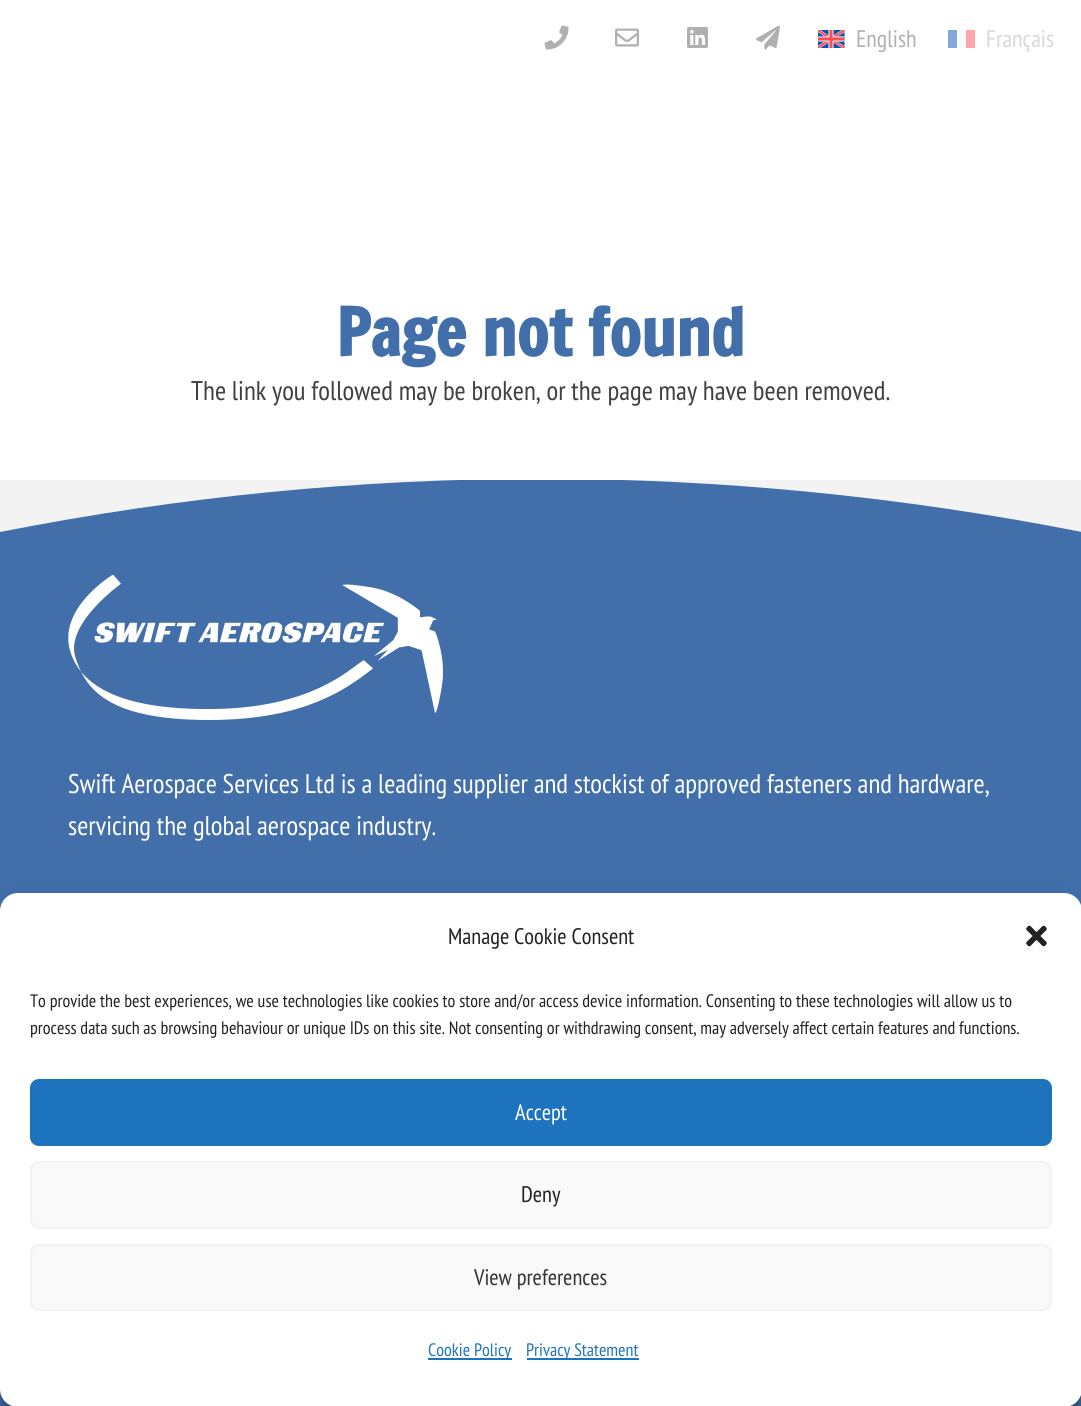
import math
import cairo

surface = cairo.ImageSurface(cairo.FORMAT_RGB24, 1081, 1406)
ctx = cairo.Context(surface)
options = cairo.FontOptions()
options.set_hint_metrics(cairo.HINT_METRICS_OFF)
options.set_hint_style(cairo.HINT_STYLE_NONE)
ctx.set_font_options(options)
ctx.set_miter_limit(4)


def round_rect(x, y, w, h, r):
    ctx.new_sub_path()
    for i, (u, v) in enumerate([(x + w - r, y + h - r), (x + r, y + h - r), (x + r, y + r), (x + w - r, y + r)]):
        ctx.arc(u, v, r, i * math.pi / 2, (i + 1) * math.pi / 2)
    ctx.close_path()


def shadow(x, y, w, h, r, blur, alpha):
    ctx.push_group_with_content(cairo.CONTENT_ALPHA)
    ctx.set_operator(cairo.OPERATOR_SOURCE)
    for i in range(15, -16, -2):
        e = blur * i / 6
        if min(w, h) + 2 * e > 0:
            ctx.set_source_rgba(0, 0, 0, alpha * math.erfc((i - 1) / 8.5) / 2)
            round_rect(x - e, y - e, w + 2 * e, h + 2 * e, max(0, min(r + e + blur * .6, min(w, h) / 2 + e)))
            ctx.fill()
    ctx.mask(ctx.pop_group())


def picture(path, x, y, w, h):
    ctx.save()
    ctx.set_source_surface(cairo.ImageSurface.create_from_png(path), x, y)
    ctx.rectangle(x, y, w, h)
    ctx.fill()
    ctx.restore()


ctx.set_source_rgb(1, 1, 1)
ctx.paint()
picture("img1.png", 544, 25, 25, 25)
picture("img2.png", 615, 28, 24, 19)
picture("img3.png", 687, 27, 21, 21)
picture("img4.png", 756, 26, 24, 24)
picture("img5.png", 818, 30, 27, 18)
ctx.select_font_face("PT Sans Narrow")
ctx.set_font_size(24)
ctx.set_source_rgb(0.69, 0.69, 0.69)
ctx.move_to(856, 47)
ctx.show_text("English")
ctx.set_source_rgb(0.847, 0.847, 0.847)
ctx.move_to(986, 47)
ctx.show_text("Français")
ctx.set_source_rgb(0.973, 0.973, 0.973)
ctx.rectangle(957, 30, 9, 18)
ctx.fill()
ctx.set_source_rgb(1, 0.647, 0.667)
ctx.rectangle(966, 30, 9, 18)
ctx.fill()
ctx.set_source_rgb(0.502, 0.663, 0.855)
ctx.rectangle(948, 30, 9, 18)
ctx.fill()
ctx.select_font_face("Francois One", cairo.FONT_SLANT_NORMAL, cairo.FONT_WEIGHT_BOLD)
ctx.set_font_size(64.75)
ctx.set_source_rgb(0.259, 0.435, 0.667)
ctx.move_to(336, 356)
ctx.show_text("Page not found")
ctx.select_font_face("PT Sans Narrow")
ctx.set_font_size(27)
ctx.set_source_rgb(0.251, 0.251, 0.251)
ctx.move_to(191, 400)
ctx.show_text("The link you followed may be broken, or the page may have been removed.")
ctx.set_source_rgb(0.259, 0.435, 0.667)
ctx.rectangle(0, 480, 1081, 926)
ctx.fill()
ctx.save()
ctx.rectangle(0, 480, 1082, 53)
ctx.clip()
ctx.set_source_rgb(0.953, 0.953, 0.953)
ctx.new_path()
ctx.move_to(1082, 478)
ctx.line_to(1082, 532)
ctx.curve_to(721, 461, 360, 461, 0, 532)
ctx.line_to(0, 478)
ctx.close_path()
ctx.fill()
ctx.restore()
picture("img6.png", 68, 575, 375, 145)
ctx.set_source_rgb(1, 1, 1)
ctx.move_to(68, 793)
ctx.show_text("Swift Aerospace Services Ltd is a leading supplier and stockist of approved fasteners and hardware,")
ctx.move_to(68, 835)
ctx.show_text("servicing the global aerospace industry.")
ctx.set_source_rgb(0, 0, 0)
shadow(0, 902, 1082, 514, 18, 4.5, 0.23)
shadow(0, 908, 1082, 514, 18, 15, 0.19)
ctx.set_source_rgb(1, 1, 1)
round_rect(0, 893, 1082, 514, 18)
ctx.fill()
ctx.set_font_size(22.5)
ctx.set_source_rgb(0.133, 0.133, 0.133)
ctx.move_to(448, 944)
ctx.show_text("Manage Cookie Consent")
picture("img7.png", 1026, 925, 21, 22)
ctx.set_font_size(18)
ctx.move_to(30, 1007)
ctx.show_text("To provide the best experiences, we use technologies like cookies to store and/or access device information. Consenting to these technologies will allow us to")
ctx.move_to(30, 1034)
ctx.show_text("process data such as browsing behaviour or unique IDs on this site. Not consenting or withdrawing consent, may adversely affect certain features and functions.")
ctx.set_source_rgb(0.118, 0.451, 0.745)
round_rect(31, 1080, 1020, 65, 8)
ctx.fill_preserve()
ctx.stroke()
ctx.set_font_size(22.5)
ctx.set_source_rgb(1, 1, 1)
ctx.move_to(515, 1120)
ctx.show_text("Accept")
ctx.set_source_rgb(0.976, 0.976, 0.976)
round_rect(31, 1162, 1020, 66, 8)
ctx.fill_preserve()
ctx.set_source_rgb(0.949, 0.949, 0.949)
ctx.stroke()
ctx.set_source_rgb(0.133, 0.133, 0.133)
ctx.move_to(521, 1202)
ctx.show_text("Deny")
ctx.set_source_rgb(0.976, 0.976, 0.976)
round_rect(31, 1245, 1020, 65, 8)
ctx.fill_preserve()
ctx.set_source_rgb(0.949, 0.949, 0.949)
ctx.stroke()
ctx.set_source_rgb(0.2, 0.2, 0.2)
ctx.move_to(474, 1285)
ctx.show_text("View preferences")
ctx.set_source_rgb(0.118, 0.451, 0.745)
ctx.rectangle(428, 1358, 84, 2)
ctx.fill()
ctx.set_font_size(18)
ctx.move_to(428, 1356)
ctx.show_text("Cookie Policy")
ctx.rectangle(527, 1358, 112, 2)
ctx.fill()
ctx.move_to(526, 1356)
ctx.show_text("Privacy Statement")
surface.write_to_png("page.png")
